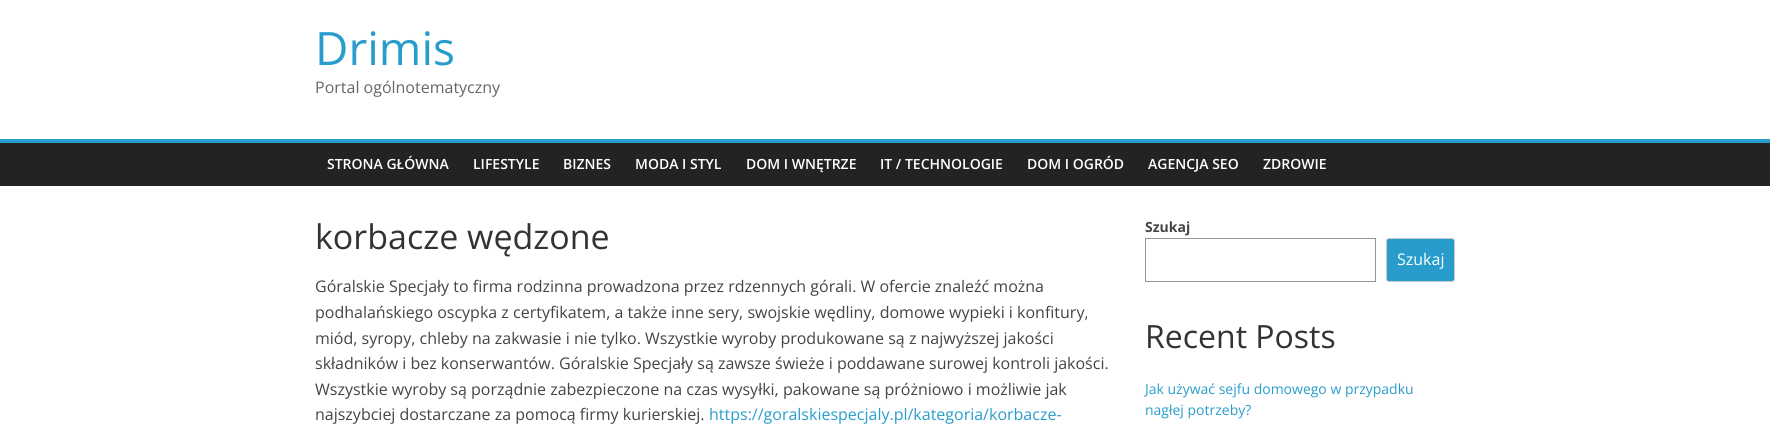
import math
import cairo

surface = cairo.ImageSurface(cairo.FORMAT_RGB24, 1770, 424)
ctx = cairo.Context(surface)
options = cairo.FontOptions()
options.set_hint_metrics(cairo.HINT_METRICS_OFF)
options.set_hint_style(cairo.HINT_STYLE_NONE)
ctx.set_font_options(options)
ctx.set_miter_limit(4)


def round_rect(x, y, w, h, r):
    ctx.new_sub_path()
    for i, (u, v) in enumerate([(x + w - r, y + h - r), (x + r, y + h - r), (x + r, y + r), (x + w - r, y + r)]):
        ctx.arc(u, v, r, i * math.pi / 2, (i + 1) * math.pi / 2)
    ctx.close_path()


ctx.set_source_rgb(1, 1, 1)
ctx.paint()
ctx.select_font_face("Open Sans")
ctx.set_font_size(46)
ctx.set_source_rgb(0.157, 0.616, 0.8)
ctx.move_to(315, 65)
ctx.show_text("Drimis")
ctx.set_font_size(16)
ctx.set_source_rgb(0.4, 0.4, 0.4)
ctx.move_to(315, 93)
ctx.show_text("Portal ogólnotematyczny")
ctx.set_source_rgb(0.137, 0.137, 0.137)
ctx.rectangle(0, 143, 1770, 43)
ctx.fill()
ctx.set_source_rgb(0.157, 0.616, 0.8)
ctx.rectangle(0, 139, 1770, 4)
ctx.fill()
ctx.select_font_face("Open Sans SemiBold")
ctx.set_font_size(14)
ctx.set_source_rgb(1, 1, 1)
ctx.move_to(327, 169)
ctx.show_text("STRONA GŁÓWNA")
ctx.move_to(473, 169)
ctx.show_text("LIFESTYLE")
ctx.move_to(563, 169)
ctx.show_text("BIZNES")
ctx.move_to(635, 169)
ctx.show_text("MODA I STYL")
ctx.move_to(746, 169)
ctx.show_text("DOM I WNĘTRZE")
ctx.move_to(880, 169)
ctx.show_text("IT / TECHNOLOGIE")
ctx.move_to(1027, 169)
ctx.show_text("DOM I OGRÓD")
ctx.move_to(1148, 169)
ctx.show_text("AGENCJA SEO")
ctx.move_to(1263, 169)
ctx.show_text("ZDROWIE")
ctx.select_font_face("Open Sans")
ctx.set_font_size(34)
ctx.set_source_rgb(0.2, 0.2, 0.2)
ctx.move_to(315, 249)
ctx.show_text("korbacze wędzone")
ctx.set_font_size(16)
ctx.set_source_rgb(0.267, 0.267, 0.267)
ctx.move_to(315, 292)
ctx.show_text("Góralskie Specjały to firma rodzinna prowadzona przez rdzennych górali. W ofercie znaleźć można")
ctx.move_to(315, 318)
ctx.show_text("podhalańskiego oscypka z certyfikatem, a także inne sery, swojskie wędliny, domowe wypieki i konfitury,")
ctx.move_to(315, 344)
ctx.show_text("miód, syropy, chleby na zakwasie i nie tylko. Wszystkie wyroby produkowane są z najwyższej jakości")
ctx.move_to(315, 369)
ctx.show_text("składników i bez konserwantów. Góralskie Specjały są zawsze świeże i poddawane surowej kontroli jakości.")
ctx.move_to(315, 395)
ctx.show_text("Wszystkie wyroby są porządnie zabezpieczone na czas wysyłki, pakowane są próżniowo i możliwie jak")
ctx.move_to(315, 420)
ctx.show_text("najszybciej dostarczane za pomocą firmy kurierskiej.")
ctx.set_source_rgb(0.157, 0.616, 0.8)
ctx.move_to(709, 420)
ctx.show_text("https://goralskiespecjaly.pl/kategoria/korbacze-")
ctx.select_font_face("Open Sans", cairo.FONT_SLANT_NORMAL, cairo.FONT_WEIGHT_BOLD)
ctx.set_font_size(14)
ctx.set_source_rgb(0.267, 0.267, 0.267)
ctx.move_to(1145, 232)
ctx.show_text("Szukaj")
ctx.rectangle(1145.5, 238.5, 230, 43)
ctx.set_source_rgb(0.58, 0.58, 0.58)
ctx.set_line_width(1)
ctx.stroke()
ctx.set_source_rgb(0.157, 0.616, 0.8)
round_rect(1386.5, 238.5, 68, 43, 2.5)
ctx.fill_preserve()
ctx.set_source_rgb(0.8, 0.8, 0.8)
ctx.stroke()
ctx.select_font_face("Open Sans")
ctx.set_font_size(16)
ctx.set_source_rgb(1, 1, 1)
ctx.move_to(1397, 265)
ctx.show_text("Szukaj")
ctx.set_font_size(32)
ctx.set_source_rgb(0.2, 0.2, 0.2)
ctx.move_to(1145, 348)
ctx.show_text("Recent Posts")
ctx.set_font_size(14)
ctx.set_source_rgb(0.157, 0.616, 0.8)
ctx.move_to(1145, 394)
ctx.show_text("Jak używać sejfu domowego w przypadku")
ctx.move_to(1145, 415)
ctx.show_text("nagłej potrzeby?")
surface.write_to_png("page.png")
